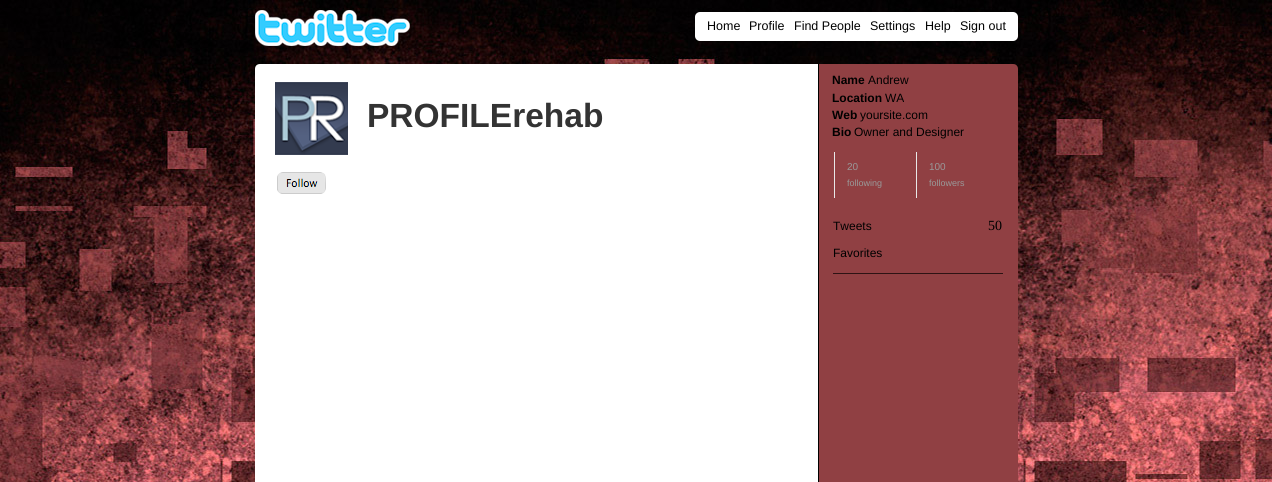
import math
import cairo

surface = cairo.ImageSurface(cairo.FORMAT_RGB24, 1272, 482)
ctx = cairo.Context(surface)
options = cairo.FontOptions()
options.set_hint_metrics(cairo.HINT_METRICS_OFF)
options.set_hint_style(cairo.HINT_STYLE_NONE)
ctx.set_font_options(options)
ctx.set_miter_limit(4)


def round_rect(x, y, w, h, r):
    ctx.new_sub_path()
    for i, (u, v) in enumerate([(x + w - r, y + h - r), (x + r, y + h - r), (x + r, y + r), (x + w - r, y + r)]):
        ctx.arc(u, v, r, i * math.pi / 2, (i + 1) * math.pi / 2)
    ctx.close_path()


def picture(path, x, y, w, h):
    ctx.save()
    ctx.set_source_surface(cairo.ImageSurface.create_from_png(path), x, y)
    ctx.rectangle(x, y, w, h)
    ctx.fill()
    ctx.restore()


ctx.set_source_rgb(1, 1, 1)
ctx.paint()
picture("img1.png", 0, 0, 1272, 482)
picture("img2.png", 255, 10, 155, 36)
ctx.set_source_rgb(1, 1, 1)
round_rect(695, 12, 323, 29, 5)
ctx.fill()
ctx.select_font_face("Liberation Sans")
ctx.set_font_size(12.5)
ctx.set_source_rgb(0, 0, 0)
ctx.move_to(707, 30)
ctx.show_text("Home")
ctx.move_to(749, 30)
ctx.show_text("Profile")
ctx.move_to(794, 30)
ctx.show_text("Find People")
ctx.move_to(870, 30)
ctx.show_text("Settings")
ctx.move_to(925, 30)
ctx.show_text("Help")
ctx.move_to(960, 30)
ctx.show_text("Sign out")
ctx.set_source_rgb(1, 1, 1)
ctx.new_path()
ctx.move_to(260, 64)
ctx.line_to(818, 64)
ctx.line_to(818, 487)
ctx.line_to(260, 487)
ctx.curve_to(257, 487, 255, 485, 255, 482)
ctx.line_to(255, 69)
ctx.curve_to(255, 66, 257, 64, 260, 64)
ctx.close_path()
ctx.fill()
picture("img3.png", 275, 82, 73, 73)
ctx.select_font_face("Liberation Sans", cairo.FONT_SLANT_NORMAL, cairo.FONT_WEIGHT_BOLD)
ctx.set_font_size(33.5)
ctx.set_source_rgb(0.2, 0.2, 0.2)
ctx.move_to(367, 127)
ctx.show_text("PROFILErehab")
picture("img4.png", 277, 172, 49, 22)
ctx.set_source_rgb(0.565, 0.251, 0.263)
ctx.new_path()
ctx.move_to(818, 64)
ctx.line_to(1013, 64)
ctx.curve_to(1016, 64, 1018, 66, 1018, 69)
ctx.line_to(1018, 482)
ctx.curve_to(1018, 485, 1016, 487, 1013, 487)
ctx.line_to(818, 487)
ctx.close_path()
ctx.fill()
ctx.set_source_rgb(0, 0, 0)
ctx.rectangle(818, 64, 1, 418)
ctx.fill()
ctx.set_font_size(12)
ctx.move_to(832, 84)
ctx.show_text("Name")
ctx.select_font_face("Liberation Sans")
ctx.move_to(868, 84)
ctx.show_text("Andrew")
ctx.select_font_face("Liberation Sans", cairo.FONT_SLANT_NORMAL, cairo.FONT_WEIGHT_BOLD)
ctx.move_to(832, 102)
ctx.show_text("Location")
ctx.select_font_face("Liberation Sans")
ctx.move_to(885, 102)
ctx.show_text("WA")
ctx.select_font_face("Liberation Sans", cairo.FONT_SLANT_NORMAL, cairo.FONT_WEIGHT_BOLD)
ctx.move_to(832, 119)
ctx.show_text("Web")
ctx.select_font_face("Liberation Sans")
ctx.move_to(860, 119)
ctx.show_text("yoursite.com")
ctx.select_font_face("Liberation Sans", cairo.FONT_SLANT_NORMAL, cairo.FONT_WEIGHT_BOLD)
ctx.move_to(832, 136)
ctx.show_text("Bio")
ctx.select_font_face("Liberation Sans")
ctx.move_to(854, 136)
ctx.show_text("Owner and Designer")
ctx.set_source_rgb(0.91, 0.91, 0.91)
ctx.rectangle(834, 152, 1, 46)
ctx.fill()
ctx.set_font_size(10)
ctx.set_source_rgb(0.6, 0.6, 0.6)
ctx.move_to(847, 170)
ctx.show_text("20")
ctx.set_font_size(9)
ctx.move_to(847, 186)
ctx.show_text("following")
ctx.set_source_rgb(0.91, 0.91, 0.91)
ctx.rectangle(916, 152, 1, 46)
ctx.fill()
ctx.set_font_size(10)
ctx.set_source_rgb(0.6, 0.6, 0.6)
ctx.move_to(929, 170)
ctx.show_text("100")
ctx.set_font_size(9)
ctx.move_to(929, 186)
ctx.show_text("followers")
ctx.set_font_size(12)
ctx.set_source_rgb(0, 0, 0)
ctx.move_to(833, 230)
ctx.show_text("Tweets")
ctx.select_font_face("Liberation Serif")
ctx.set_font_size(14)
ctx.move_to(988, 230)
ctx.show_text("50")
ctx.select_font_face("Liberation Sans")
ctx.set_font_size(12)
ctx.move_to(833, 257)
ctx.show_text("Favorites")
ctx.set_source_rgb(0.176, 0.075, 0.082)
ctx.rectangle(833, 273, 170, 1)
ctx.fill()
surface.write_to_png("page.png")
